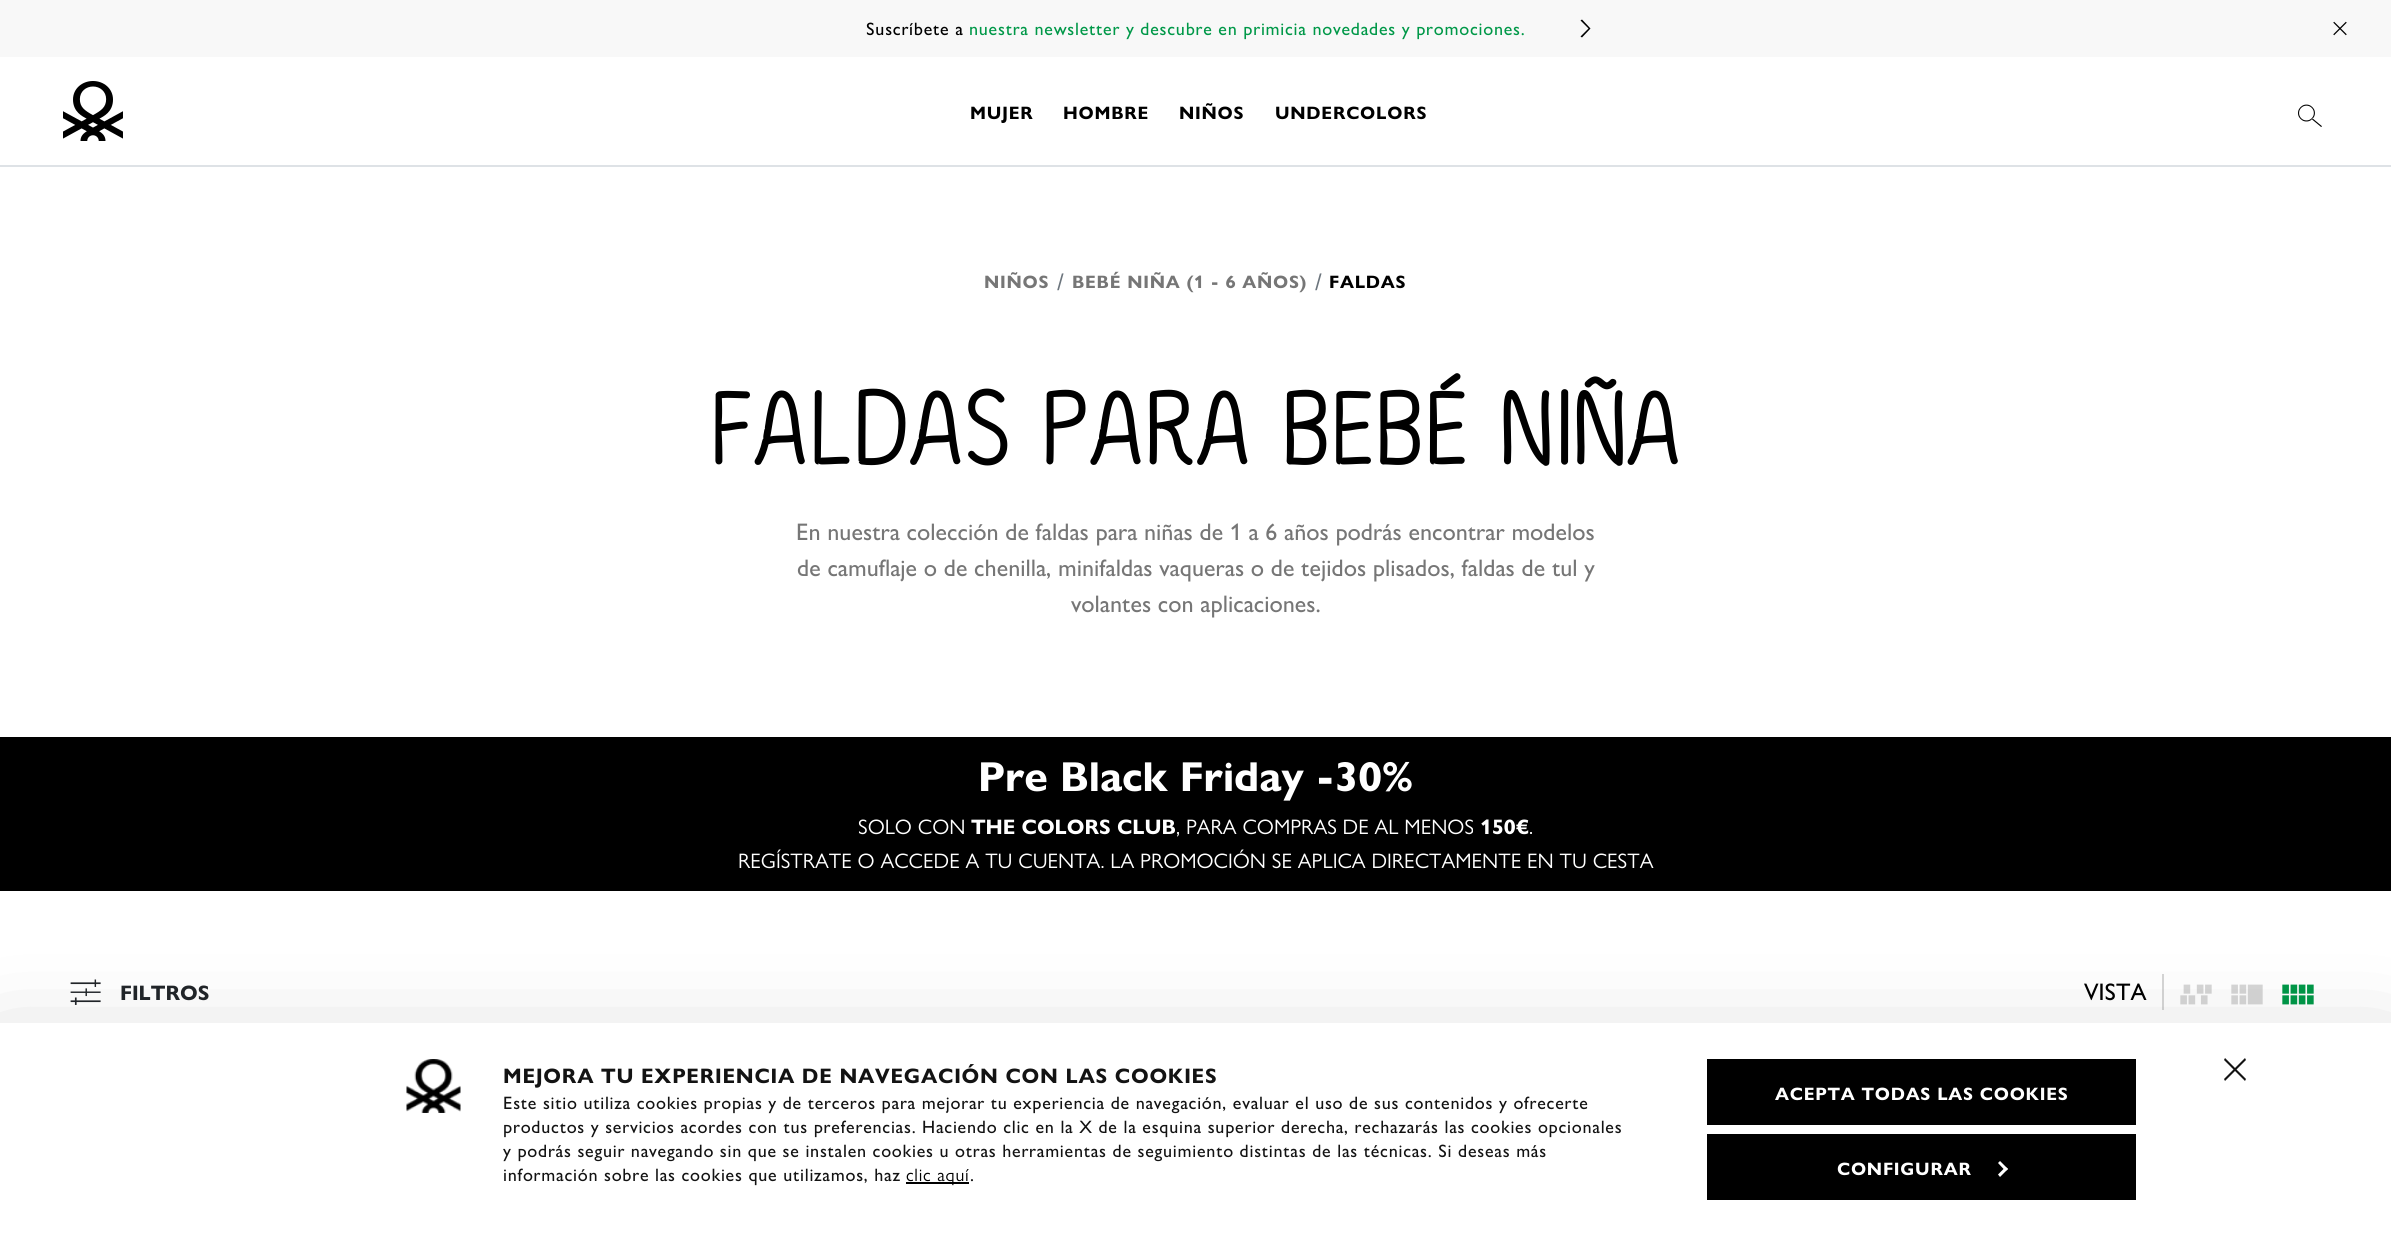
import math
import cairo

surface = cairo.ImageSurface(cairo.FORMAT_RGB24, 2391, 1236)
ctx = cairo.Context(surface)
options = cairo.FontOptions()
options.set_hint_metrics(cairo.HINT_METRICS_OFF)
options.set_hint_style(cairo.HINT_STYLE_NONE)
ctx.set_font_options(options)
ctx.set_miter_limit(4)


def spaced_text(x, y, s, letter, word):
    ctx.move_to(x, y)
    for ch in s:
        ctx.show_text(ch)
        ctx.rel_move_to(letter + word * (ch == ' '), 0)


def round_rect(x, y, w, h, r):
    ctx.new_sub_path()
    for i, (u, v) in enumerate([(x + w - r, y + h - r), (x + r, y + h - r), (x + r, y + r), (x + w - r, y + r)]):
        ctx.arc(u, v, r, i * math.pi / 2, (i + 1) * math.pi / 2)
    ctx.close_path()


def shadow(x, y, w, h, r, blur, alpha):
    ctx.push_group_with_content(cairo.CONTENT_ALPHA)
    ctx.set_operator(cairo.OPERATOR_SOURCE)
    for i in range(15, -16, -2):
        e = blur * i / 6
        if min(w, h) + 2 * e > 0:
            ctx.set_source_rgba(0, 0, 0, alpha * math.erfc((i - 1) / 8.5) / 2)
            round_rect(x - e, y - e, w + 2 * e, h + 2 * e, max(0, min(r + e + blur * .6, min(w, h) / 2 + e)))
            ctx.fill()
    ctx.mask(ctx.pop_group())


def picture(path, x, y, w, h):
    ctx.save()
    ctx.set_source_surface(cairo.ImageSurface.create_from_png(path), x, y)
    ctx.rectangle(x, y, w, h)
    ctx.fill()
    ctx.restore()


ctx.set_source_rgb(1, 1, 1)
ctx.paint()
ctx.set_source_rgb(0.871, 0.886, 0.902)
ctx.rectangle(0, 165, 2391, 2)
ctx.fill()
ctx.set_source_rgb(0.969, 0.969, 0.969)
ctx.rectangle(0, 0, 2391, 57)
ctx.fill()
ctx.select_font_face("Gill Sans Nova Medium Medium")
ctx.set_font_size(18)
ctx.set_source_rgb(0, 0, 0)
spaced_text(866, 35, "Suscríbete a", 0.75, 0)
ctx.set_source_rgb(0, 0.596, 0.282)
spaced_text(969, 35, "nuestra newsletter y descubre en primicia novedades y promociones.", 0.75, 0)
ctx.set_source_rgb(0, 0, 0)
ctx.new_path()
ctx.move_to(1582, 37.5)
ctx.line_to(1580.5, 36.5)
ctx.line_to(1588.5, 28.5)
ctx.line_to(1580.5, 20.5)
ctx.line_to(1582, 19.5)
ctx.line_to(1590.5, 28.5)
ctx.close_path()
ctx.fill()
picture("img1.png", 2333, 21, 14, 15)
picture("img2.png", 63, 81, 60, 60)
ctx.select_font_face("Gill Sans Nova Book", cairo.FONT_SLANT_NORMAL, cairo.FONT_WEIGHT_BOLD)
spaced_text(970, 119, "MUJER", 0.75, 0)
spaced_text(1063, 119, "HOMBRE", 0.75, 0)
spaced_text(1179, 119, "NIÑOS", 0.75, 0)
spaced_text(1275, 119, "UNDERCOLORS", 0.75, 0)
picture("img3.png", 2298, 104, 24, 23)
ctx.set_source_rgb(0.463, 0.463, 0.463)
spaced_text(984, 288, "NIÑOS", 0.75, 0)
ctx.select_font_face("Gill Sans Nova Medium Medium")
ctx.set_font_size(24)
ctx.set_source_rgb(0.424, 0.459, 0.49)
spaced_text(1057, 290, "/", 0.75, 0)
ctx.select_font_face("Gill Sans Nova Book", cairo.FONT_SLANT_NORMAL, cairo.FONT_WEIGHT_BOLD)
ctx.set_font_size(18)
ctx.set_source_rgb(0.463, 0.463, 0.463)
spaced_text(1072, 288, "BEBÉ NIÑA (1 - 6 AÑOS)", 0.75, 0)
ctx.select_font_face("Gill Sans Nova Medium Medium")
ctx.set_font_size(24)
ctx.set_source_rgb(0.424, 0.459, 0.49)
spaced_text(1315, 290, "/", 0.75, 0)
ctx.select_font_face("Gill Sans Nova Book", cairo.FONT_SLANT_NORMAL, cairo.FONT_WEIGHT_BOLD)
ctx.set_font_size(18)
ctx.set_source_rgb(0, 0, 0)
spaced_text(1329, 288, "FALDAS", 0.75, 0)
ctx.select_font_face("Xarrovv", cairo.FONT_SLANT_NORMAL, cairo.FONT_WEIGHT_BOLD)
ctx.set_font_size(100.5)
ctx.move_to(709, 464)
ctx.show_text("FALDAS PARA BEBÉ NIÑA")
ctx.select_font_face("Gill Sans Nova Medium Medium")
ctx.set_font_size(24)
ctx.set_source_rgb(0.463, 0.463, 0.463)
ctx.move_to(796, 540)
ctx.show_text("En nuestra colección de faldas para niñas de 1 a 6 años podrás encontrar modelos")
ctx.move_to(797, 576)
ctx.show_text("de camuflaje o de chenilla, minifaldas vaqueras o de tejidos plisados, faldas de tul y")
ctx.move_to(1071, 612)
ctx.show_text("volantes con aplicaciones.")
ctx.set_source_rgb(0, 0, 0)
ctx.rectangle(0, 737, 2391, 154)
ctx.fill()
ctx.select_font_face("Gill Sans Nova Book", cairo.FONT_SLANT_NORMAL, cairo.FONT_WEIGHT_BOLD)
ctx.set_font_size(42)
ctx.set_source_rgb(1, 1, 1)
ctx.move_to(978, 791)
ctx.show_text("Pre Black Friday -30%")
ctx.select_font_face("Gill Sans Nova Book")
ctx.set_font_size(21)
ctx.move_to(858, 834)
ctx.show_text("SOLO CON")
ctx.select_font_face("Gill Sans Nova Book", cairo.FONT_SLANT_NORMAL, cairo.FONT_WEIGHT_BOLD)
ctx.move_to(971, 834)
ctx.show_text("THE COLORS CLUB")
ctx.select_font_face("Gill Sans Nova Book")
ctx.move_to(1176, 834)
ctx.show_text(", PARA COMPRAS DE AL MENOS")
ctx.select_font_face("Gill Sans Nova Book", cairo.FONT_SLANT_NORMAL, cairo.FONT_WEIGHT_BOLD)
ctx.move_to(1480, 834)
ctx.show_text("150€")
ctx.select_font_face("Gill Sans Nova Book")
ctx.move_to(1529, 834)
ctx.show_text(".")
ctx.move_to(738, 868)
ctx.show_text("REGÍSTRATE O ACCEDE A TU CUENTA. LA PROMOCIÓN SE APLICA DIRECTAMENTE EN TU CESTA")
picture("img4.png", 70, 979, 31, 26)
ctx.select_font_face("Gill Sans Nova Book", cairo.FONT_SLANT_NORMAL, cairo.FONT_WEIGHT_BOLD)
ctx.set_source_rgb(0.129, 0.145, 0.161)
ctx.move_to(120, 1000)
ctx.show_text("FILTROS")
ctx.set_source_rgb(0.839, 0.839, 0.839)
ctx.rectangle(2162, 974, 2, 36)
ctx.fill()
ctx.select_font_face("Gill Sans Nova Medium Medium")
ctx.set_font_size(24)
ctx.set_source_rgb(0, 0, 0)
ctx.move_to(2084, 1000)
ctx.show_text("VISTA")
picture("img5.png", 2180, 984, 32, 21)
picture("img6.png", 2231, 984, 32, 21)
picture("img7.png", 2282, 984, 32, 21)
ctx.set_source_rgb(0, 0, 0)
shadow(0, 1068, 2391, 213, 0, 52.5, 0.3)
ctx.set_source_rgb(1, 1, 1)
ctx.rectangle(0, 1023, 2391, 213)
ctx.fill()
picture("img8.png", 406, 1059, 55, 54)
ctx.select_font_face("Gill Sans Nova Book", cairo.FONT_SLANT_NORMAL, cairo.FONT_WEIGHT_BOLD)
ctx.set_font_size(21)
ctx.set_source_rgb(0.078, 0.078, 0.078)
spaced_text(503, 1083, "MEJORA TU EXPERIENCIA DE NAVEGACIÓN CON LAS COOKIES", 0.75, 0)
ctx.select_font_face("Gill Sans Nova Medium Medium")
ctx.set_font_size(18)
spaced_text(503, 1109, "Este sitio utiliza cookies propias y de terceros para mejorar tu experiencia de navegación, evaluar el uso de sus contenidos y ofrecerte", 0.75, 0)
spaced_text(503, 1133, "productos y servicios acordes con tus preferencias. Haciendo clic en la X de la esquina superior derecha, rechazarás las cookies opcionales", 0.75, 0)
spaced_text(503, 1157, "y podrás seguir navegando sin que se instalen cookies u otras herramientas de seguimiento distintas de las técnicas. Si deseas más", 0.75, 0)
spaced_text(503, 1181, "información sobre las cookies que utilizamos, haz", 0.75, 0)
ctx.set_source_rgb(0, 0, 0)
ctx.rectangle(906, 1182, 63, 2)
ctx.fill()
ctx.select_font_face("Gill Sans Nova Book")
spaced_text(906, 1181, "clic aquí", 0.75, 0)
ctx.select_font_face("Gill Sans Nova Medium Medium")
ctx.set_source_rgb(0.078, 0.078, 0.078)
spaced_text(970, 1181, ".", 0.75, 0)
ctx.set_source_rgb(0, 0, 0)
ctx.rectangle(1707, 1059, 429, 66)
ctx.fill()
ctx.select_font_face("Gill Sans Nova Book", cairo.FONT_SLANT_NORMAL, cairo.FONT_WEIGHT_BOLD)
ctx.set_source_rgb(1, 1, 1)
spaced_text(1775, 1100, "ACEPTA TODAS LAS COOKIES", 0.75, 0)
ctx.set_source_rgb(0, 0, 0)
ctx.rectangle(1707, 1134, 429, 66)
ctx.fill()
ctx.set_source_rgb(1, 1, 1)
spaced_text(1837, 1175, "CONFIGURAR", 0.75, 0)
ctx.new_path()
ctx.move_to(2000, 1161)
ctx.line_to(2008, 1169)
ctx.line_to(2005.5, 1171)
ctx.line_to(1998, 1163)
ctx.close_path()
ctx.fill()
ctx.new_path()
ctx.move_to(2005.5, 1167)
ctx.line_to(2008, 1169)
ctx.line_to(2000, 1177)
ctx.line_to(1998, 1174.5)
ctx.close_path()
ctx.fill()
ctx.set_source_rgb(0.078, 0.078, 0.078)
ctx.new_path()
ctx.move_to(2245, 1081)
ctx.line_to(2224, 1060)
ctx.line_to(2225, 1058)
ctx.line_to(2246, 1079)
ctx.close_path()
ctx.move_to(2225, 1081)
ctx.line_to(2224, 1079)
ctx.line_to(2245, 1058)
ctx.line_to(2246, 1060)
ctx.close_path()
ctx.fill()
surface.write_to_png("page.png")
